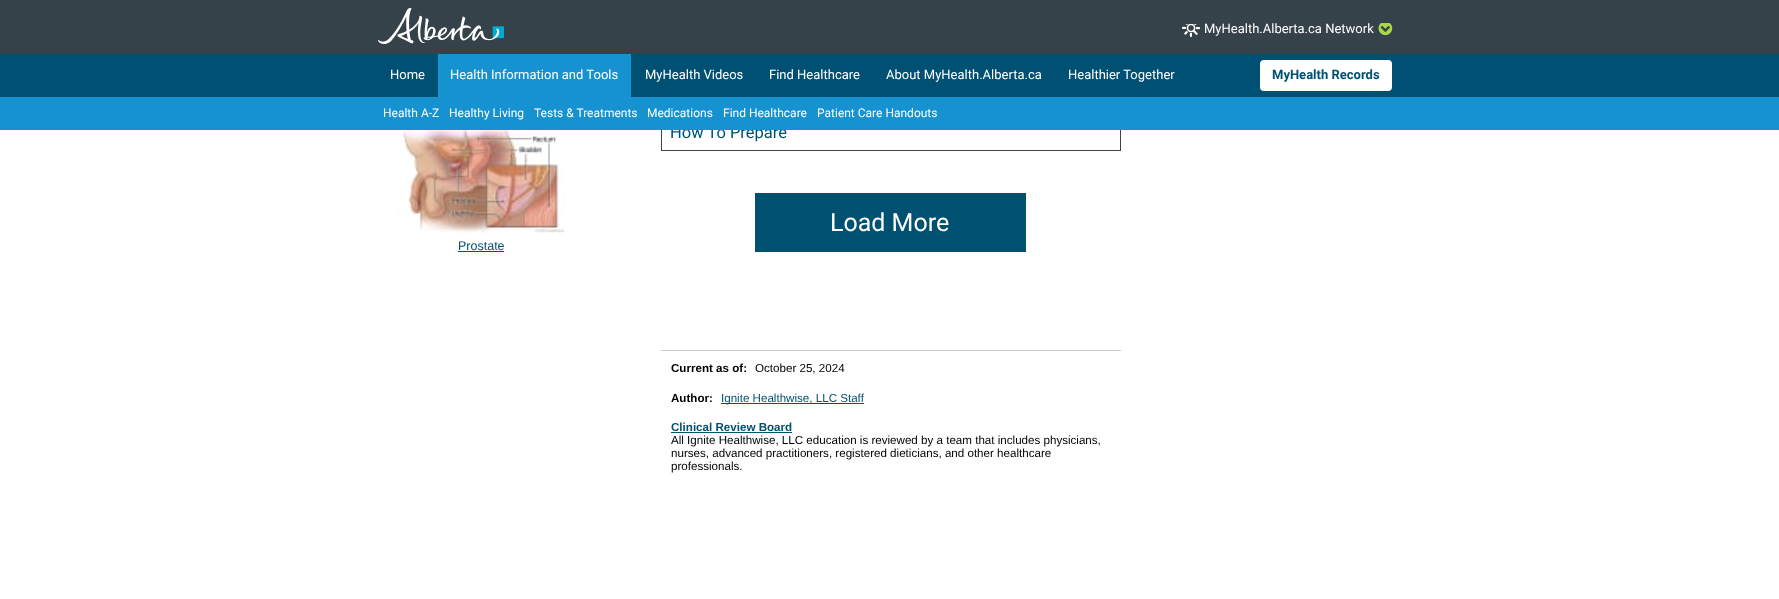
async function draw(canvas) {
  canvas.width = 1779;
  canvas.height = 599;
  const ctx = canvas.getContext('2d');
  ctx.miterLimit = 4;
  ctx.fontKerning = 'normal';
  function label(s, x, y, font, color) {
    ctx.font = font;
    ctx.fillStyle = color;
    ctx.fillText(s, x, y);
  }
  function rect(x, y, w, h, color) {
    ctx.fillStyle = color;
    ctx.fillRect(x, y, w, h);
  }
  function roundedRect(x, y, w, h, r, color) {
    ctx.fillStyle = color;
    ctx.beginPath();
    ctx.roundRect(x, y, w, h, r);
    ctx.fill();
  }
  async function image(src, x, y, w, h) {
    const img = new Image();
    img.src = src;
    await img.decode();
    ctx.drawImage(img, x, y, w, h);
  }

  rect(0, 0, 1779, 599, '#fff');
  rect(0, 54, 1779, 43, '#005073');
  rect(0, 0, 1779, 54, '#36424a');
  await image('assets/img1.png', 378, 8, 126, 36);
  await image('assets/img2.png', 1182, 24, 18, 13);
  label('MyHealth.Alberta.ca Network', 1204, 33, '13px Roboto', '#fff');
  await image('assets/img3.png', 1378, 23, 15, 13);
  label('Home', 390, 79, '13px Roboto', '#fff');
  rect(438, 54, 193, 43, '#1692d0');
  label('Health Information and Tools', 450, 79, '13px Roboto', '#fff');
  label('MyHealth Videos', 645, 79, '13px Roboto', '#fff');
  label('Find Healthcare', 769, 79, '13px Roboto', '#fff');
  label('About MyHealth.Alberta.ca', 886, 79, '13px Roboto', '#fff');
  label('Healthier Together', 1068, 79, '13px Roboto', '#fff');
  roundedRect(1260, 60, 132, 31, 4, '#fff');
  label('MyHealth Records', 1272, 79, 'bold 13px Roboto', '#005072');
  ctx.strokeStyle = '#424242';
  ctx.strokeRect(661.5, 114.5, 459, 36);
  label('How To Prepare', 670, 138, '16.5px Roboto', '#005072');
  rect(0, 97, 1779, 33, '#1692d0');
  label('Health A-Z', 383, 117, '12px Roboto', '#fff');
  label('Healthy Living', 449, 117, '12px Roboto', '#fff');
  label('Tests & Treatments', 534, 117, '12px Roboto', '#fff');
  label('Medications', 647, 117, '12px Roboto', '#fff');
  label('Find Healthcare', 723, 117, '12px Roboto', '#fff');
  label('Patient Care Handouts', 817, 117, '12px Roboto', '#fff');
  await image('assets/img4.png', 398, 130, 167, 103);
  label('Prostate', 458, 250, '12.5px Liberation Sans', '#005072');
  rect(458, 251, 46, 1, '#005072');
  rect(755, 193, 271, 59, '#005072');
  label('Load More', 830, 231, '25px Roboto', '#fff');
  rect(661, 350, 460, 1, '#cbcbcb');
  label('Current as of:', 671, 372, 'bold 11.6px Liberation Sans', '#000');
  label('October 25, 2024', 755, 372, '11.6px Liberation Sans', '#000');
  label('Author:', 671, 402, 'bold 11.6px Liberation Sans', '#000');
  rect(721, 403, 143, 1, '#005072');
  label('Ignite Healthwise, LLC Staff', 721, 402, '11.6px Liberation Sans', '#005072');
  label('Clinical Review Board', 671, 431, 'bold 11.6px Liberation Sans', '#005072');
  rect(671, 432, 121, 1, '#005072');
  label('All Ignite Healthwise, LLC education is reviewed by a team that includes physicians,', 671, 444, '11.6px Liberation Sans', '#000');
  label('nurses, advanced practitioners, registered dieticians, and other healthcare', 671, 457, '11.6px Liberation Sans', '#000');
  label('professionals.', 671, 470, '11.6px Liberation Sans', '#000');
}

draw(document.querySelector('canvas'));
